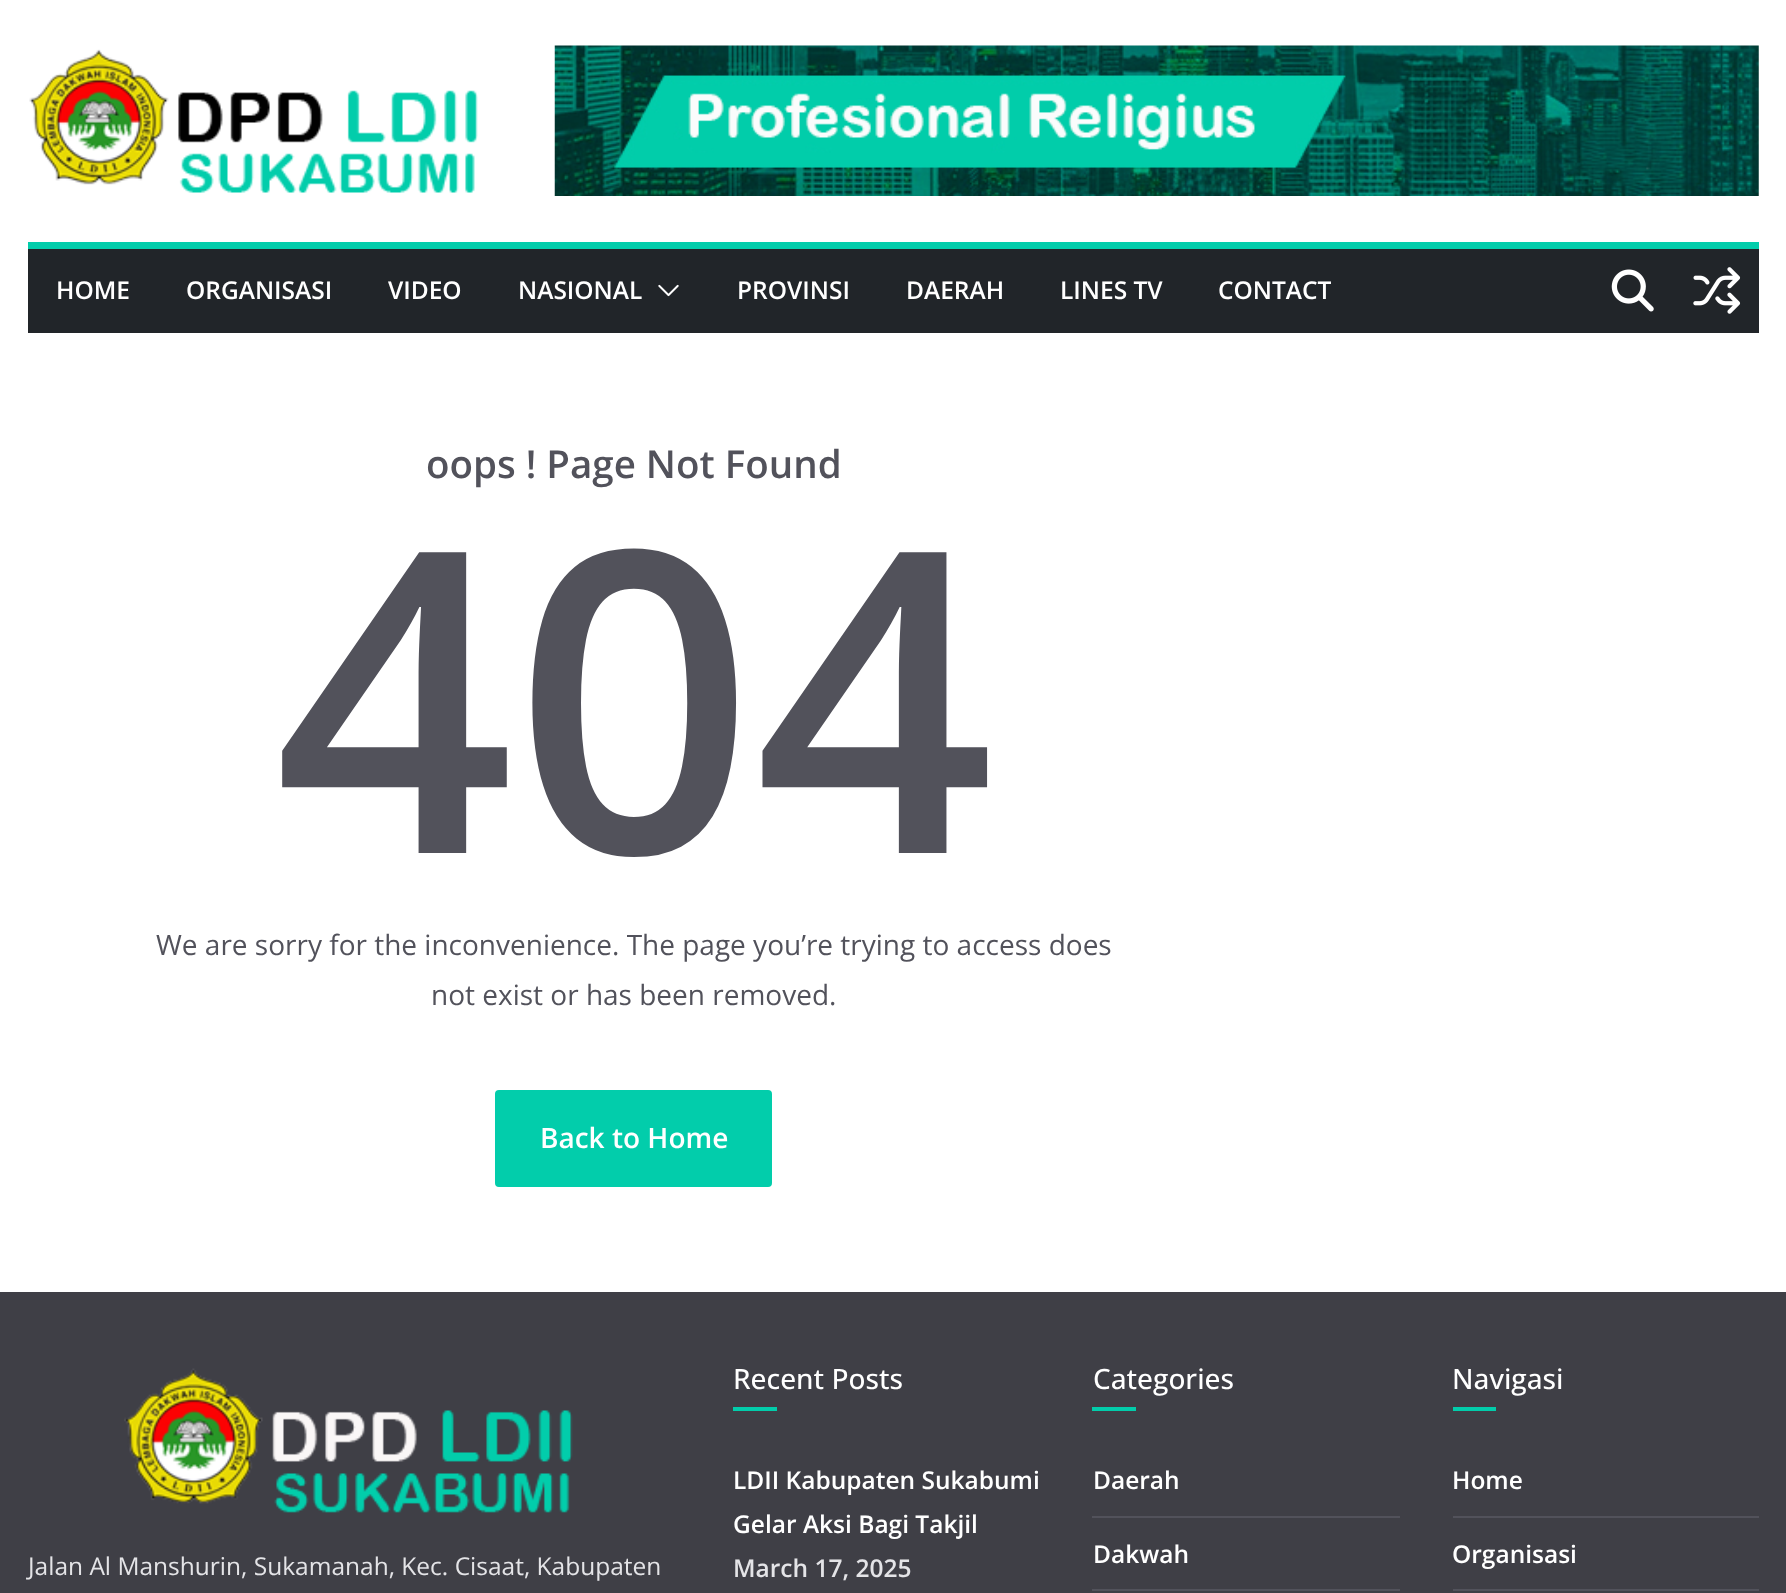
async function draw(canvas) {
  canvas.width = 1786;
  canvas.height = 1593;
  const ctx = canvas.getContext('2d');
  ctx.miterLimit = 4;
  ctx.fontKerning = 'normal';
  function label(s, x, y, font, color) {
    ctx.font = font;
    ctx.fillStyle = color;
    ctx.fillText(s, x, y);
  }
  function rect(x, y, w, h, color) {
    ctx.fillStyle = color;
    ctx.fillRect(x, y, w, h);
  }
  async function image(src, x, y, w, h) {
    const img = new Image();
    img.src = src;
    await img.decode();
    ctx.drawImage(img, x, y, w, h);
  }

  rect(0, 0, 1786, 1593, '#fff');
  await image('assets/img1.png', 29, 49, 449, 144);
  await image('assets/img2.png', 554, 45, 1205, 151);
  rect(28, 249, 1731, 84, '#212529');
  rect(28, 242, 1731, 7, '#02cdab');
  label('HOME', 56, 299, '600 24.5px Open Sans', '#fff');
  label('ORGANISASI', 186, 299, '600 24.5px Open Sans', '#fff');
  label('VIDEO', 388, 299, '600 24.5px Open Sans', '#fff');
  label('NASIONAL', 518, 299, '600 24.5px Open Sans', '#fff');
  await image('assets/img3.png', 658, 284, 21, 13);
  label('PROVINSI', 737, 299, '600 24.5px Open Sans', '#fff');
  label('DAERAH', 906, 299, '600 24.5px Open Sans', '#fff');
  label('LINES TV', 1060, 299, '600 24.5px Open Sans', '#fff');
  label('CONTACT', 1218, 299, '600 24.5px Open Sans', '#fff');
  await image('assets/img4.png', 1611, 269, 43, 43);
  await image('assets/img5.png', 1693, 267, 48, 47);
  label('oops ! Page Not Found', 426, 478, '600 38.5px Open Sans', '#52525b');
  label('404', 274, 853, '600 420px Open Sans', '#52525b');
  label('We are sorry for the inconvenience. The page you’re trying to access does', 156, 955, '28px Open Sans', '#52525b');
  label('not exist or has been removed.', 431, 1005, '28px Open Sans', '#52525b');
  ctx.fillStyle = '#02cdab';
  ctx.beginPath();
  ctx.roundRect(496, 1091, 275, 95, 3);
  ctx.fill();
  ctx.strokeStyle = '#02cdab';
  ctx.lineWidth = 2;
  ctx.stroke();
  label('Back to Home', 540, 1148, '600 28px Open Sans', '#fff');
  rect(0, 1292, 1786, 301, '#3f3f46');
  await image('assets/img6.png', 124, 1368, 449, 145);
  label('Jalan Al Manshurin, Sukamanah, Kec. Cisaat, Kabupaten', 28, 1575, '24.5px Open Sans', '#e4e4e7');
  label('Recent Posts', 733, 1389, '500 28px Open Sans', '#fff');
  rect(733, 1407, 44, 4, '#02cdab');
  label('LDII Kabupaten Sukabumi', 733, 1489, '600 24.5px Open Sans', '#fff');
  label('Gelar Aksi Bagi Takjil', 733, 1533, '600 24.5px Open Sans', '#fff');
  label('March 17, 2025', 733, 1577, '600 24.5px Open Sans', '#e4e4e7');
  label('Categories', 1093, 1389, '500 28px Open Sans', '#fff');
  rect(1092, 1407, 44, 4, '#02cdab');
  rect(1092, 1516, 308, 2, '#52525b');
  label('Daerah', 1093, 1489, '600 24.5px Open Sans', '#fff');
  rect(1092, 1589, 308, 2, '#52525b');
  label('Dakwah', 1093, 1563, '600 24.5px Open Sans', '#fff');
  label('Navigasi', 1452, 1389, '500 28px Open Sans', '#fff');
  rect(1453, 1407, 43, 4, '#02cdab');
  rect(1453, 1516, 306, 2, '#52525b');
  label('Home', 1452, 1489, '600 24.5px Open Sans', '#fff');
  rect(1453, 1589, 306, 2, '#52525b');
  label('Organisasi', 1452, 1563, '600 24.5px Open Sans', '#fff');
}

draw(document.querySelector('canvas'));
